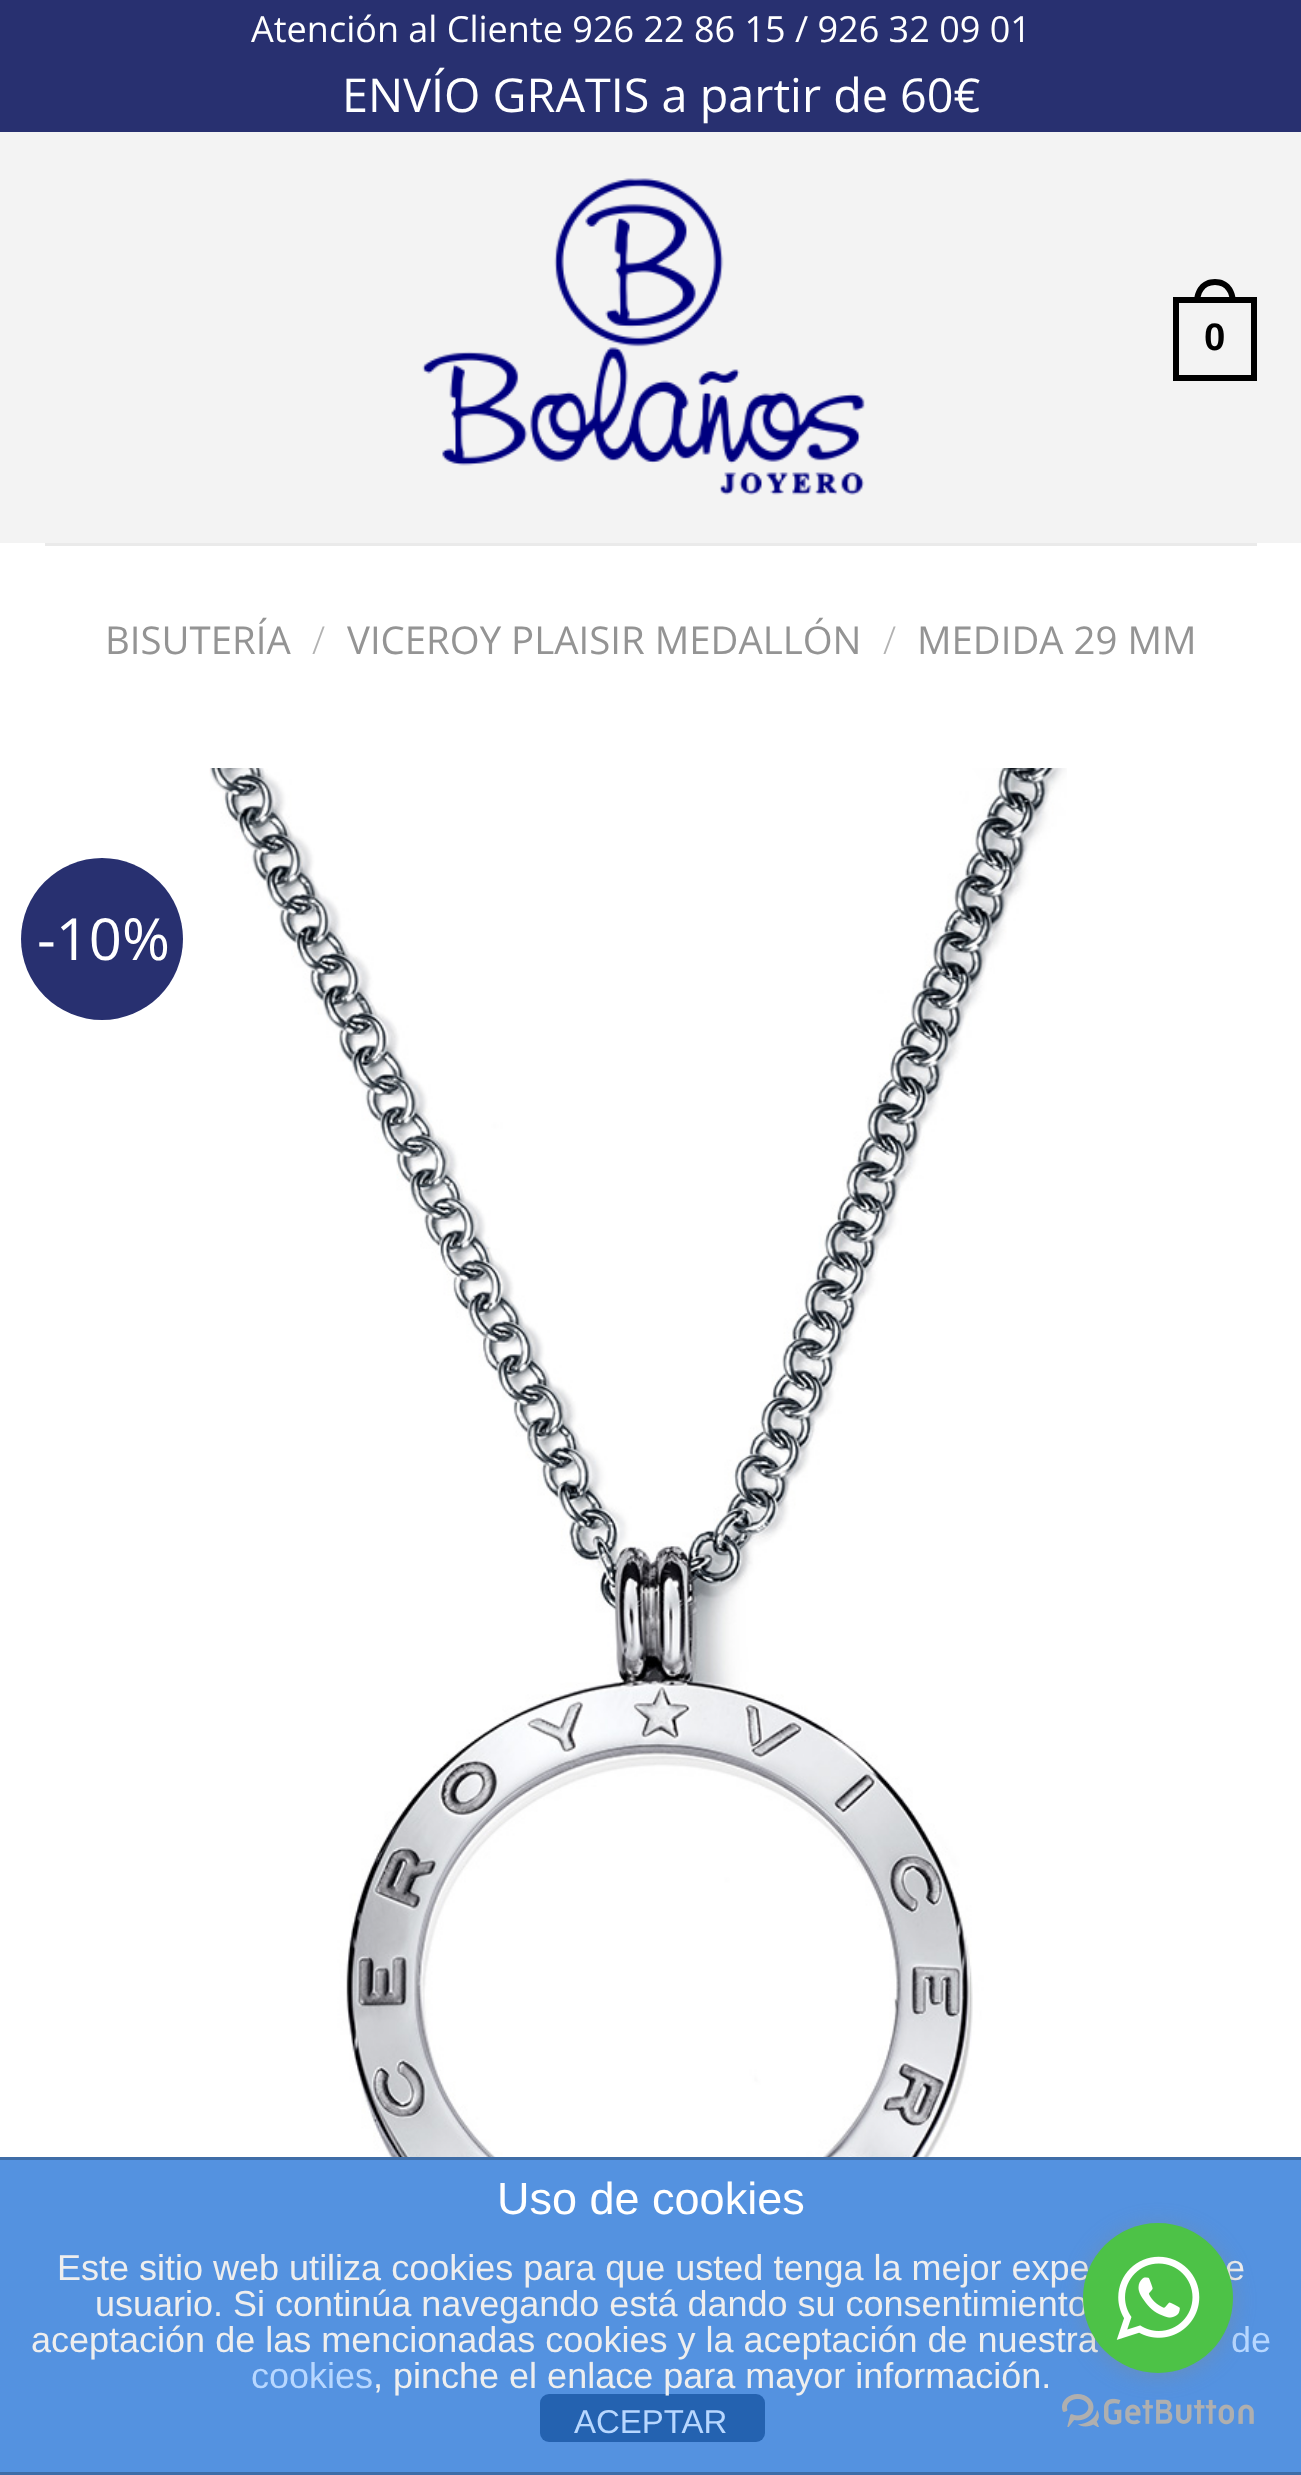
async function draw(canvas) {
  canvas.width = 1301;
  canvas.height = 2475;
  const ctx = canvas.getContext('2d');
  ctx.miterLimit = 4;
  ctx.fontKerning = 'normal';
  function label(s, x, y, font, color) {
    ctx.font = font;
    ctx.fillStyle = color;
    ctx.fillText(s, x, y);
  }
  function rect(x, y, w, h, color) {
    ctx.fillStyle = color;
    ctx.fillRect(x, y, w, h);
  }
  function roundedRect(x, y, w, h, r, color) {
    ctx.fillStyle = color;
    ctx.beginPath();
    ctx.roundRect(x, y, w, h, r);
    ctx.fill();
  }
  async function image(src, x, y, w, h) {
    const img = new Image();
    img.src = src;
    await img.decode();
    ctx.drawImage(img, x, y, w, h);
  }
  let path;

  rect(0, 0, 1301, 2475, '#fff');
  rect(0, 0, 1301, 132, '#283070');
  label('Atención al Cliente 926 22 86 15 / 926 32 09 01', 251, 42, '36px Open Sans', '#fff');
  label('ENVÍO GRATIS a partir de 60€', 342, 112, '46.75px Open Sans', '#fff');
  rect(0, 132, 1301, 411, '#f3f3f3');
  await image('assets/img1.png', 422, 178, 443, 317);
  ctx.strokeStyle = '#000';
  ctx.lineWidth = 6;
  ctx.strokeRect(1176, 300, 78, 78);
  ctx.fillStyle = '#000';
  path = new Path2D('M1215 279C1229 279 1236 290 1236 303H1194C1194 290 1201 279 1215 279ZM1215 285C1226 285 1230 294 1230 303H1200C1200 294 1204 285 1215 285Z');
  ctx.fill(path, 'evenodd');
  label('0', 1204, 350, 'bold 38.4px Liberation Sans', '#000');
  rect(45, 543, 1212, 3, '#eaeaea');
  label('BISUTERÍA', 105, 654, '38.4px Open Sans', '#949494');
  label('/', 312, 654, '300 38.4px Open Sans', '#b2b2b2');
  label('VICEROY PLAISIR MEDALLÓN', 347, 654, '38.4px Open Sans', '#949494');
  label('/', 883, 654, '300 38.4px Open Sans', '#b2b2b2');
  label('MEDIDA 29 MM', 917, 654, '38.4px Open Sans', '#949494');
  ctx.fillStyle = '#283070';
  ctx.beginPath();
  ctx.arc(102, 939, 81, 0, 2 * Math.PI);
  ctx.fill();
  label('-10%', 37, 960, '58px Open Sans', '#fff');
  await image('assets/img2.png', 209, 768, 858, 1389);
  rect(0, 2160, 1301, 312, '#5492e0');
  rect(0, 2157, 1301, 3, '#3f6da7');
  rect(0, 2472, 1301, 3, '#3f6da7');
  label('Uso de cookies', 497, 2214, '45px Liberation Sans', '#fff');
  label('Este sitio web utiliza cookies para que usted tenga la mejor expe', 57, 2280, '36px Liberation Sans', '#eee');
  label('e', 1225, 2280, '36px Liberation Sans', '#eee');
  label('usuario. Si continúa navegando está dando su consentimiento', 95, 2316, '36px Liberation Sans', '#eee');
  label('aceptación de las mencionadas cookies y la aceptación de nuestra', 31, 2352, '36px Liberation Sans', '#eee');
  label('de', 1231, 2352, '36px Liberation Sans', '#b7d7ff');
  label('cookies', 251, 2388, '36px Liberation Sans', '#b7d7ff');
  roundedRect(540, 2394, 225, 48, 9, '#2462b0');
  label(', pinche el enlace para mayor información.', 373, 2388, '36px Liberation Sans', '#eee');
  label('ACEPTAR', 574, 2433, '33px Liberation Sans', '#b7d7ff');
  await image('assets/img4.png', 1062, 2394, 192, 33);
  ctx.fillStyle = '#88888866';
  ctx.filter = 'blur(10.5px)';
  ctx.beginPath();
  ctx.roundRect(1083, 2226, 150, 150, 75);
  ctx.fill();
  ctx.filter = 'none';
  ctx.fillStyle = '#4dc247';
  ctx.beginPath();
  ctx.arc(1158, 2298, 75, 0, 2 * Math.PI);
  ctx.fill();
  await image('assets/img3.png', 1116, 2256, 84, 84);
}

draw(document.querySelector('canvas'));
